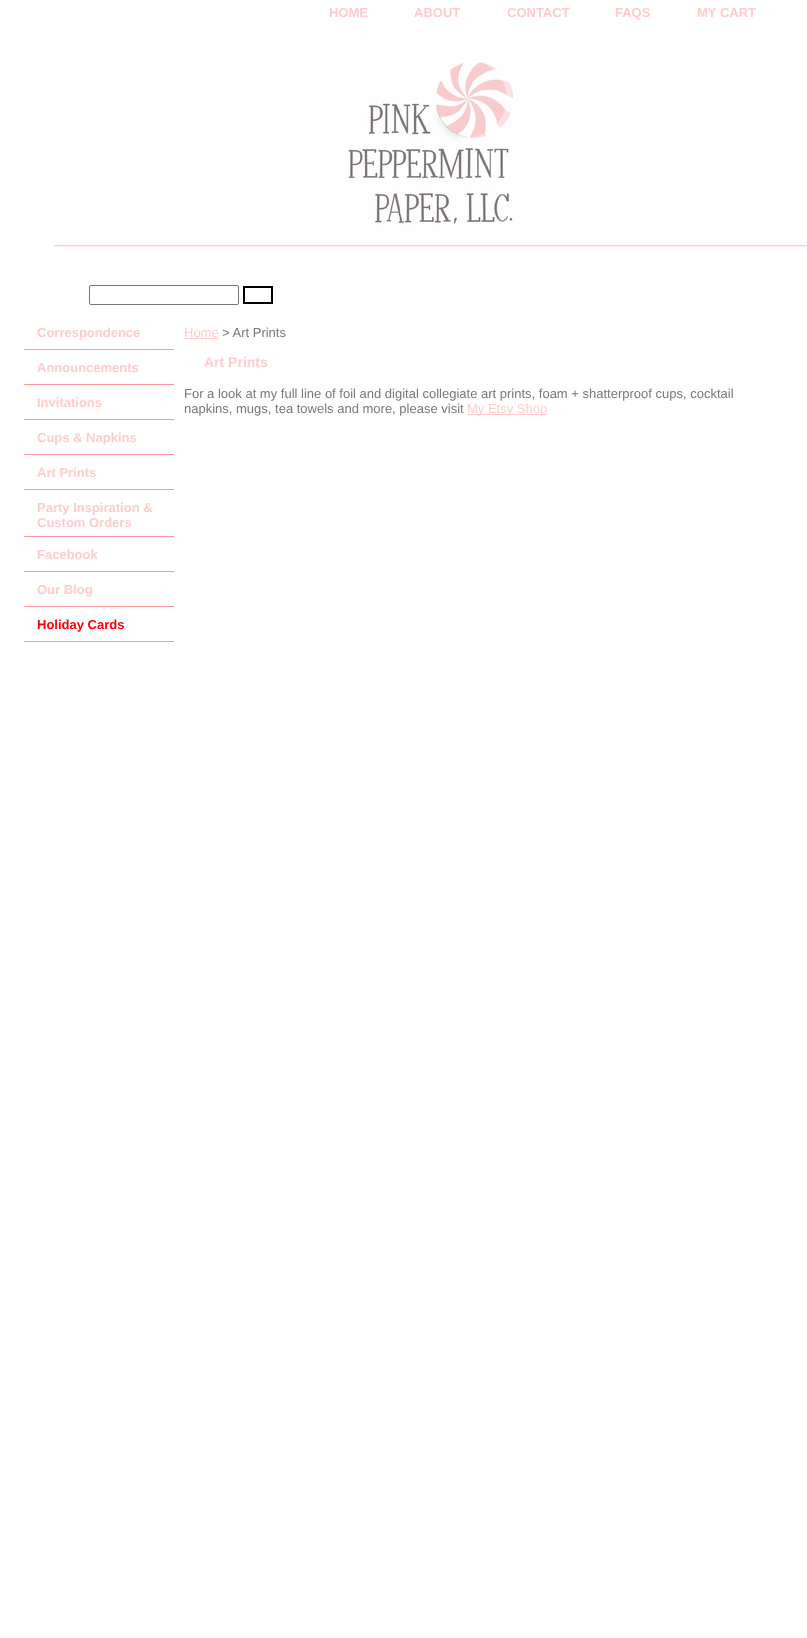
async function draw(canvas) {
  canvas.width = 807;
  canvas.height = 1638;
  const ctx = canvas.getContext('2d');
  ctx.miterLimit = 4;
  ctx.fontKerning = 'normal';
  function label(s, x, y, font, color) {
    ctx.font = font;
    ctx.fillStyle = color;
    ctx.fillText(s, x, y);
  }
  function rect(x, y, w, h, color) {
    ctx.fillStyle = color;
    ctx.fillRect(x, y, w, h);
  }
  async function image(src, x, y, w, h) {
    const img = new Image();
    img.src = src;
    await img.decode();
    ctx.drawImage(img, x, y, w, h);
  }

  rect(0, 0, 807, 1638, '#fff');
  label('HOME', 329, 17, 'bold 13px Liberation Sans', '#fcc');
  label('ABOUT', 414, 17, 'bold 13px Liberation Sans', '#fcc');
  label('CONTACT', 507, 17, 'bold 13px Liberation Sans', '#fcc');
  label('FAQS', 615, 17, 'bold 13px Liberation Sans', '#fcc');
  label('MY CART', 697, 17, 'bold 13px Liberation Sans', '#fcc');
  await image('assets/img1.png', 53, 62, 754, 185);
  ctx.beginPath();
  ctx.roundRect(89.5, 285.5, 149, 19, 1.5);
  ctx.strokeStyle = '#767676';
  ctx.stroke();
  ctx.strokeStyle = '#000';
  ctx.lineWidth = 2;
  ctx.strokeRect(244, 287, 28, 16);
  rect(24, 349, 150, 1, '#f99');
  label('Correspondence', 37, 337, 'bold 13px Liberation Sans', '#fcc');
  rect(24, 384, 150, 1, '#f99');
  label('Announcements', 37, 372, 'bold 13px Liberation Sans', '#fcc');
  rect(24, 419, 150, 1, '#f99');
  label('Invitations', 37, 407, 'bold 13px Liberation Sans', '#fcc');
  rect(24, 454, 150, 1, '#f99');
  label('Cups & Napkins', 37, 442, 'bold 13px Liberation Sans', '#fcc');
  rect(24, 489, 150, 1, '#f99');
  label('Art Prints', 37, 477, 'bold 13px Liberation Sans', '#fcc');
  rect(24, 536, 150, 1, '#f99');
  label('Party Inspiration &', 37, 512, 'bold 13px Liberation Sans', '#fcc');
  label('Custom Orders', 37, 527, 'bold 13px Liberation Sans', '#fcc');
  rect(24, 571, 150, 1, '#f99');
  label('Facebook', 37, 559, 'bold 13px Liberation Sans', '#fcc');
  rect(24, 606, 150, 1, '#f99');
  label('Our Blog', 37, 594, 'bold 13px Liberation Sans', '#fcc');
  rect(24, 641, 150, 1, '#f99');
  label('Holiday Cards', 37, 629, 'bold 13px Liberation Sans', '#f00');
  label('Home', 184, 337, '13px Liberation Sans', '#fcc');
  rect(184, 338, 34, 1, '#fcc');
  label('> Art Prints', 222, 337, '13px Liberation Sans', '#787878');
  label('Art Prints', 204, 367, 'bold 14px Liberation Sans', '#fcc');
  label('For a look at my full line of foil and digital collegiate art prints, foam + shatterproof cups, cocktail', 184, 398, '13px Liberation Sans', '#787878');
  label('napkins, mugs, tea towels and more, please visit', 184, 413, '13px Liberation Sans', '#787878');
  rect(467, 414, 80, 1, '#fcc');
  label('My Etsy Shop', 467, 413, '13px Liberation Sans', '#fcc');
}

draw(document.querySelector('canvas'));
